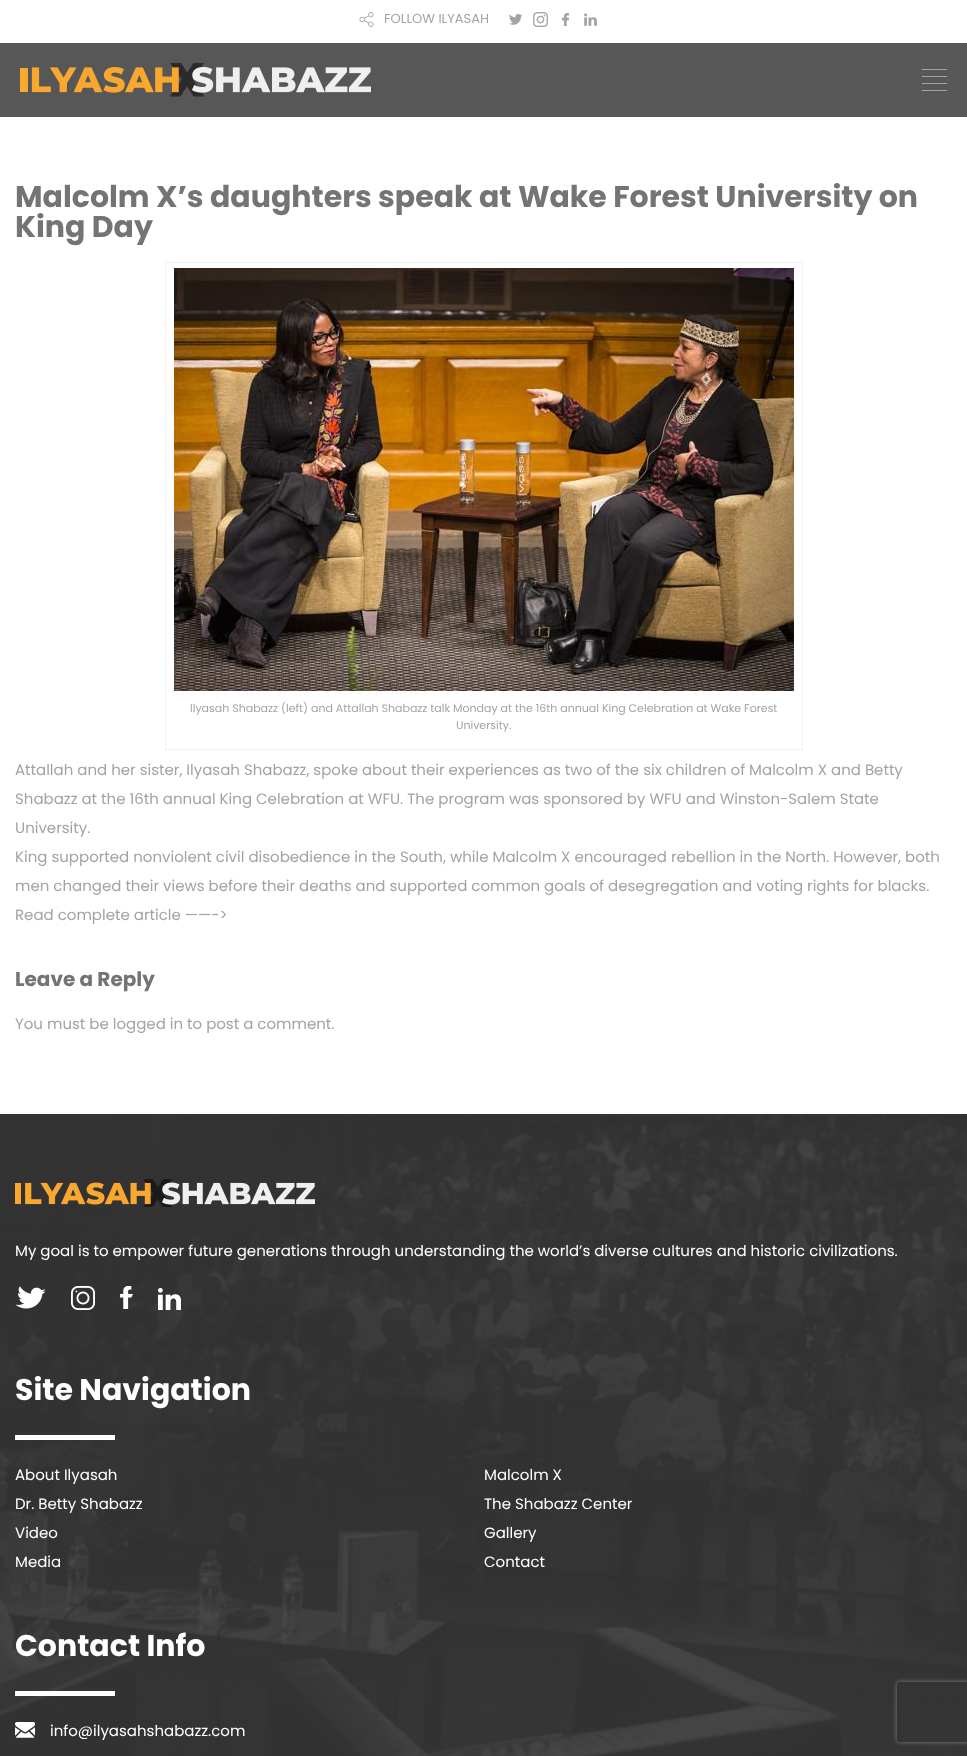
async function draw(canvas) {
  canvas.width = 967;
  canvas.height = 1756;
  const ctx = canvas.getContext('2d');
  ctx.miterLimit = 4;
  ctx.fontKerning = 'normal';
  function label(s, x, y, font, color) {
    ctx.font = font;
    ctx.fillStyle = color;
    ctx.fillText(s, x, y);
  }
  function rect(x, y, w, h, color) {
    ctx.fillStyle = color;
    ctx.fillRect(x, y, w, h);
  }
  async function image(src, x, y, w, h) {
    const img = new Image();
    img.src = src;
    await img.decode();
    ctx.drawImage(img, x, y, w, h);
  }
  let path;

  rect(0, 0, 967, 1756, '#fff');
  await image('assets/img1.png', 359, 12, 15, 15);
  label('FOLLOW ILYASAH', 384, 23, '13px Poppins', '#a3a3a3');
  await image('assets/img2.png', 509, 14, 13, 11);
  await image('assets/img3.png', 533, 12, 15, 15);
  await image('assets/img4.png', 562, 13, 7, 13);
  await image('assets/img5.png', 584, 13, 13, 13);
  rect(0, 43, 967, 74, '#575757');
  await image('assets/img6.png', 20, 63, 351, 34);
  rect(922, 69, 25, 1, '#a3a3a3');
  rect(922, 76, 25, 1, '#a3a3a3');
  rect(922, 83, 25, 1, '#a3a3a3');
  rect(922, 90, 25, 1, '#a3a3a3');
  label('Malcolm X’s daughters speak at Wake Forest University on', 15, 207, 'bold 30px Poppins', '#727475');
  label('King Day', 15, 237, 'bold 30px Poppins', '#727475');
  ctx.strokeStyle = '#f0f0f0';
  ctx.strokeRect(165.5, 262.5, 637, 487);
  await image('assets/img7.png', 174, 268, 620, 423);
  label('Ilyasah Shabazz (left) and Attallah Shabazz talk Monday at the 16th annual King Celebration at Wake Forest', 190, 712, '11px Poppins', '#a3a3a3');
  label('University.', 456, 729, '11px Poppins', '#a3a3a3');
  label('Attallah and her sister, Ilyasah Shabazz, spoke about their experiences as two of the six children of Malcolm X and Betty', 15, 775, '15px Poppins', '#a3a3a3');
  label('Shabazz at the 16th annual King Celebration at WFU. The program was sponsored by WFU and Winston-Salem State', 15, 804, '15px Poppins', '#a3a3a3');
  label('University.', 15, 833, '15px Poppins', '#a3a3a3');
  label('King supported nonviolent civil disobedience in the South, while Malcolm X encouraged rebellion in the North. However, both', 15, 862, '15px Poppins', '#a3a3a3');
  label('men changed their views before their deaths and supported common goals of desegregation and voting rights for blacks.', 15, 891, '15px Poppins', '#a3a3a3');
  label('Read complete article ——->', 15, 920, '15px Poppins', '#a3a3a3');
  label('Leave a Reply', 15, 986, 'bold 20px Poppins', '#727475');
  label('You must be logged in to post a comment.', 15, 1029, '15px Poppins', '#a3a3a3');
  await image('assets/img8.png', 0, 1114, 967, 642);
  await image('assets/img9.png', 15, 1179, 300, 28);
  label('My goal is to empower future generations through understanding the world’s diverse cultures and historic civilizations.', 15, 1256, '15px Poppins', '#fff');
  await image('assets/img10.png', 15, 1286, 31, 23);
  await image('assets/img11.png', 71, 1286, 24, 24);
  await image('assets/img12.png', 120, 1286, 13, 23);
  await image('assets/img13.png', 158, 1288, 23, 22);
  label('Site Navigation', 15, 1400, 'bold 30px Poppins', '#fff');
  rect(15, 1435, 100, 5, '#fff');
  label('About Ilyasah', 15, 1480, '15px Poppins', '#fff');
  label('Malcolm X', 484, 1480, '15px Poppins', '#fff');
  label('Dr. Betty Shabazz', 15, 1509, '15px Poppins', '#fff');
  label('The Shabazz Center', 484, 1509, '15px Poppins', '#fff');
  label('Video', 15, 1538, '15px Poppins', '#fff');
  label('Gallery', 484, 1538, '15px Poppins', '#fff');
  label('Media', 15, 1567, '15px Poppins', '#fff');
  label('Contact', 484, 1567, '15px Poppins', '#fff');
  label('Contact Info', 15, 1656, 'bold 30px Poppins', '#fff');
  rect(15, 1691, 100, 5, '#fff');
  await image('assets/img14.png', 15, 1722, 20, 16);
  label('info@ilyasahshabazz.com', 50, 1736, '15px Poppins', '#fff');
  ctx.save();
  path = new Path2D('M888 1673H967V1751H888ZM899 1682H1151C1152 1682 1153 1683 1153 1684V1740C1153 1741 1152 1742 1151 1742H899C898 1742 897 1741 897 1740V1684C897 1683 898 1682 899 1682Z');
  ctx.clip(path, 'evenodd');
  ctx.fillStyle = '#808080';
  ctx.filter = 'blur(2.5px)';
  ctx.beginPath();
  ctx.roundRect(897, 1682, 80, 60, 2);
  ctx.fill();
  ctx.filter = 'none';
  ctx.restore();
}

draw(document.querySelector('canvas'));
